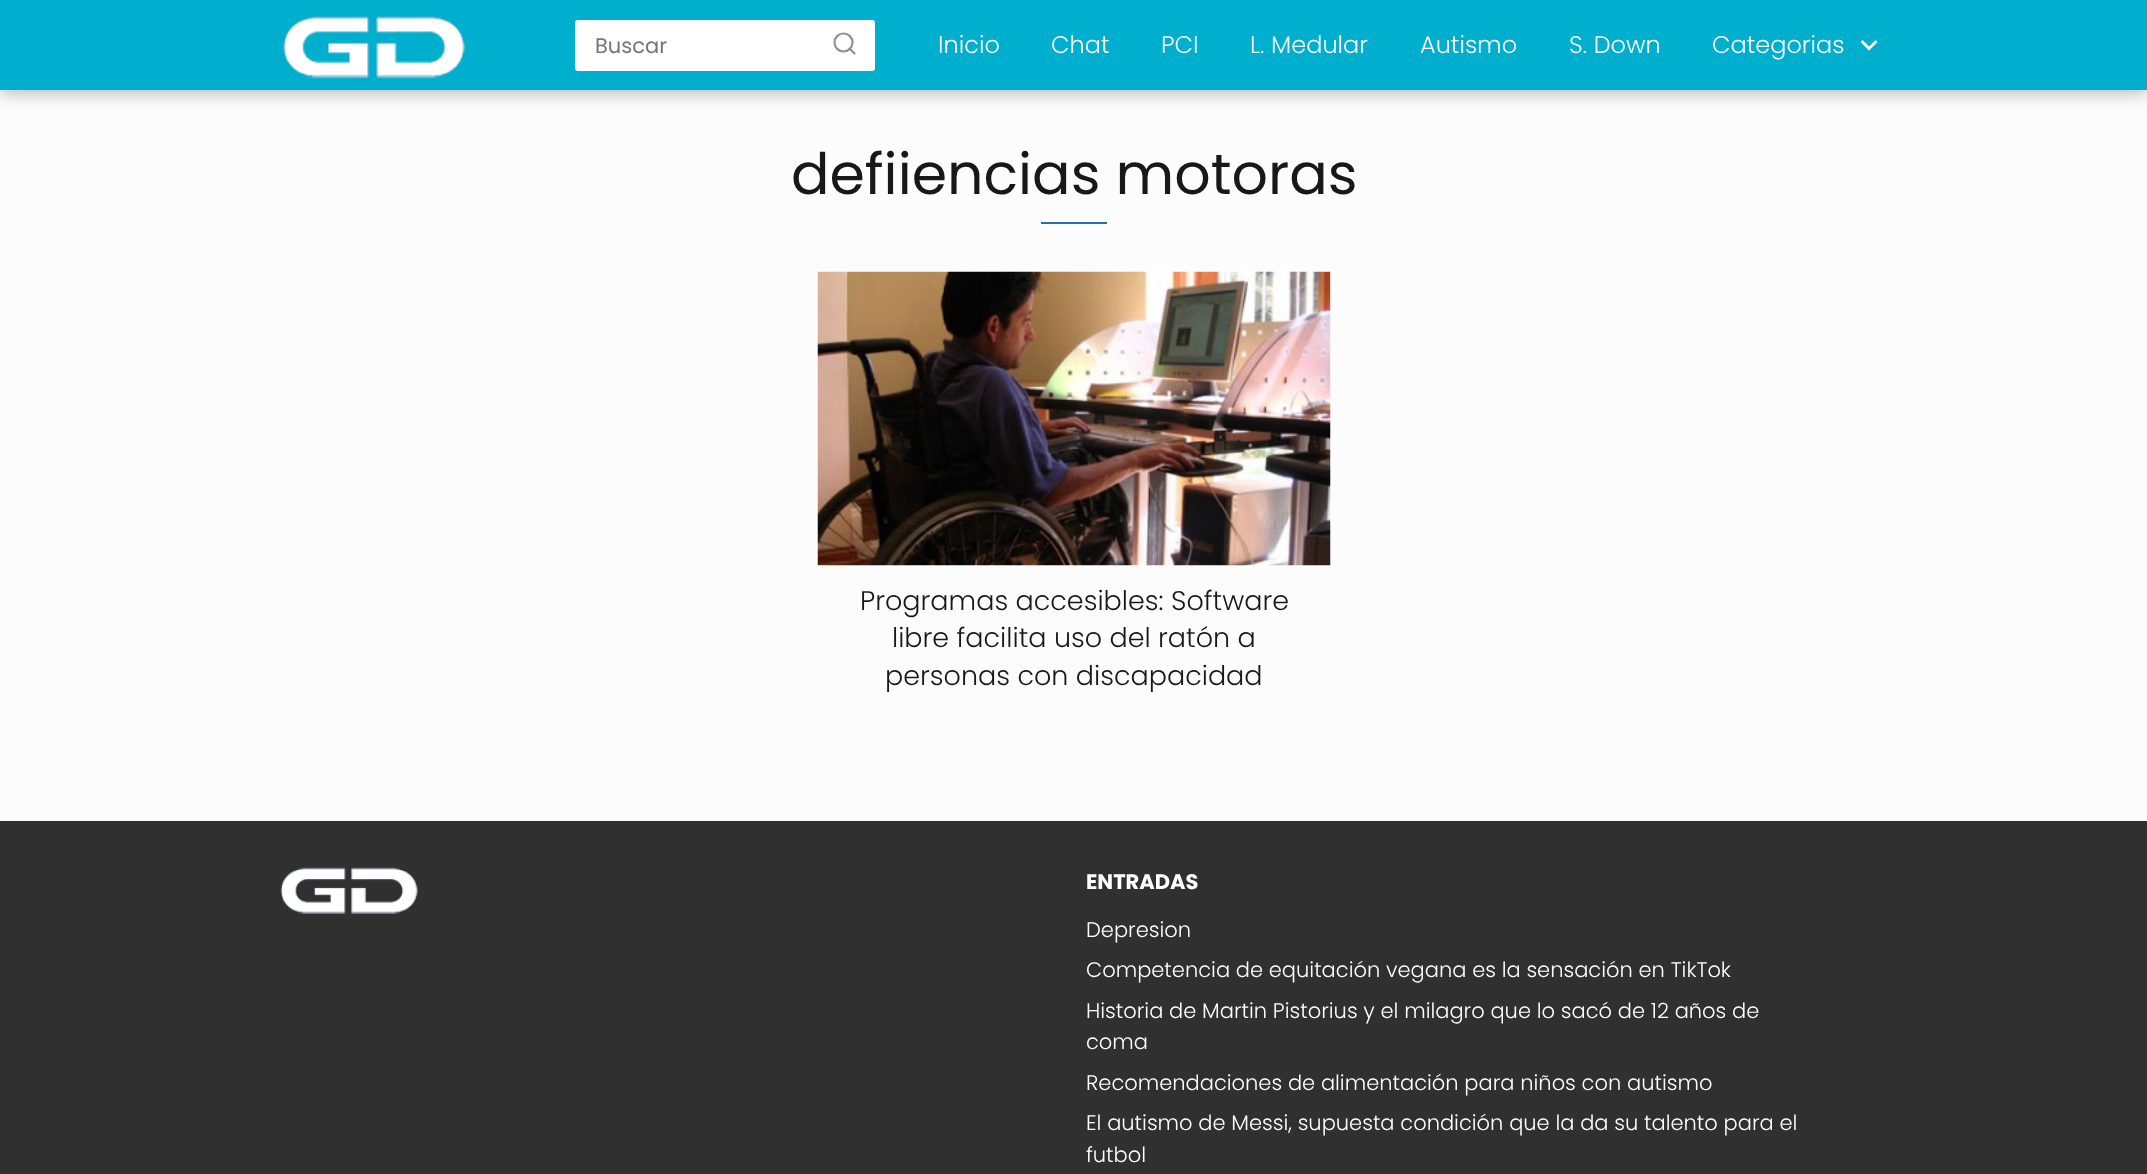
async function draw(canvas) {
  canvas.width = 2147;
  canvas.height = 1174;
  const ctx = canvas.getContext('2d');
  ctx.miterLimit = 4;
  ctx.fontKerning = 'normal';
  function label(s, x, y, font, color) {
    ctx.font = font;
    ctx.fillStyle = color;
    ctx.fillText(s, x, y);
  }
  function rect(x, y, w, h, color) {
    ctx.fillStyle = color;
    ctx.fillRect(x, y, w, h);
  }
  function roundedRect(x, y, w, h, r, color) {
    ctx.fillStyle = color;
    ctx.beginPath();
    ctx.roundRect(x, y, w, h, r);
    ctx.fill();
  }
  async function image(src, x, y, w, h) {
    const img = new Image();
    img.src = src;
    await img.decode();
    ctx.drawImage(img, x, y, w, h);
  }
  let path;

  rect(0, 0, 2147, 1174, '#fcfcfc');
  ctx.fillStyle = '#0000004d';
  ctx.filter = 'blur(9px)';
  ctx.beginPath();
  ctx.rect(0, 2, 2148, 90);
  ctx.fill();
  ctx.filter = 'none';
  rect(0, 0, 2147, 90, '#00aecd');
  await image('assets/img1.png', 283, 16, 183, 63);
  roundedRect(575, 20, 300, 51, 3, '#fff');
  ctx.beginPath();
  ctx.roundRect(576, 21, 298, 49, 2);
  ctx.strokeStyle = '#ffffff26';
  ctx.lineWidth = 2;
  ctx.stroke();
  label('Buscar', 595, 53, '21px Poppins', '#757575');
  ctx.beginPath();
  ctx.arc(843.5, 42.5, 9, 0, 2 * Math.PI);
  ctx.strokeStyle = '#919191';
  ctx.lineWidth = 2.2;
  ctx.stroke();
  path = new Path2D('M854.5 53.5L849.5 48.5');
  ctx.lineCap = 'round';
  ctx.lineJoin = 'round';
  ctx.stroke(path);
  label('Inicio', 938, 53, '300 24px Poppins', '#fff');
  label('Chat', 1051, 53, '300 24px Poppins', '#fff');
  label('PCI', 1161, 53, '300 24px Poppins', '#fff');
  label('L. Medular', 1250, 53, '300 24px Poppins', '#fff');
  label('Autismo', 1420, 53, '300 24px Poppins', '#fff');
  label('S. Down', 1569, 53, '300 24px Poppins', '#fff');
  label('Categorias', 1712, 53, '300 24px Poppins', '#fff');
  path = new Path2D('M1875.5 40L1877.5 42L1869 50.5L1867 48.5Z');
  ctx.fill(path);
  path = new Path2D('M1862.5 40L1871 48.5L1869 50.5L1860.5 42Z');
  ctx.fill(path);
  label('defiiencias motoras', 791, 194, '57px Poppins', '#181818');
  rect(1041, 222, 66, 2, '#2471a3');
  await image('assets/img2.png', 817, 271, 514, 295);
  label('Programas accesibles: Software', 860, 610, '300 27px Poppins', '#181818');
  label('libre facilita uso del ratón a', 892, 647, '300 27px Poppins', '#181818');
  label('personas con discapacidad', 885, 685, '300 27px Poppins', '#181818');
  rect(0, 821, 2147, 353, '#303030');
  await image('assets/img3.png', 280, 867, 138, 47);
  label('ENTRADAS', 1086, 889, 'bold 21px Poppins', '#fff');
  label('Depresion', 1086, 937, '300 21px Poppins', '#fff');
  label('Competencia de equitación vegana es la sensación en TikTok', 1086, 977, '300 21px Poppins', '#fff');
  label('Historia de Martin Pistorius y el milagro que lo sacó de 12 años de', 1086, 1018, '300 21px Poppins', '#fff');
  label('coma', 1086, 1049, '300 21px Poppins', '#fff');
  label('Recomendaciones de alimentación para niños con autismo', 1086, 1090, '300 21px Poppins', '#fff');
  label('El autismo de Messi, supuesta condición que la da su talento para el', 1086, 1130, '300 21px Poppins', '#fff');
  label('futbol', 1086, 1162, '300 21px Poppins', '#fff');
}

draw(document.querySelector('canvas'));
